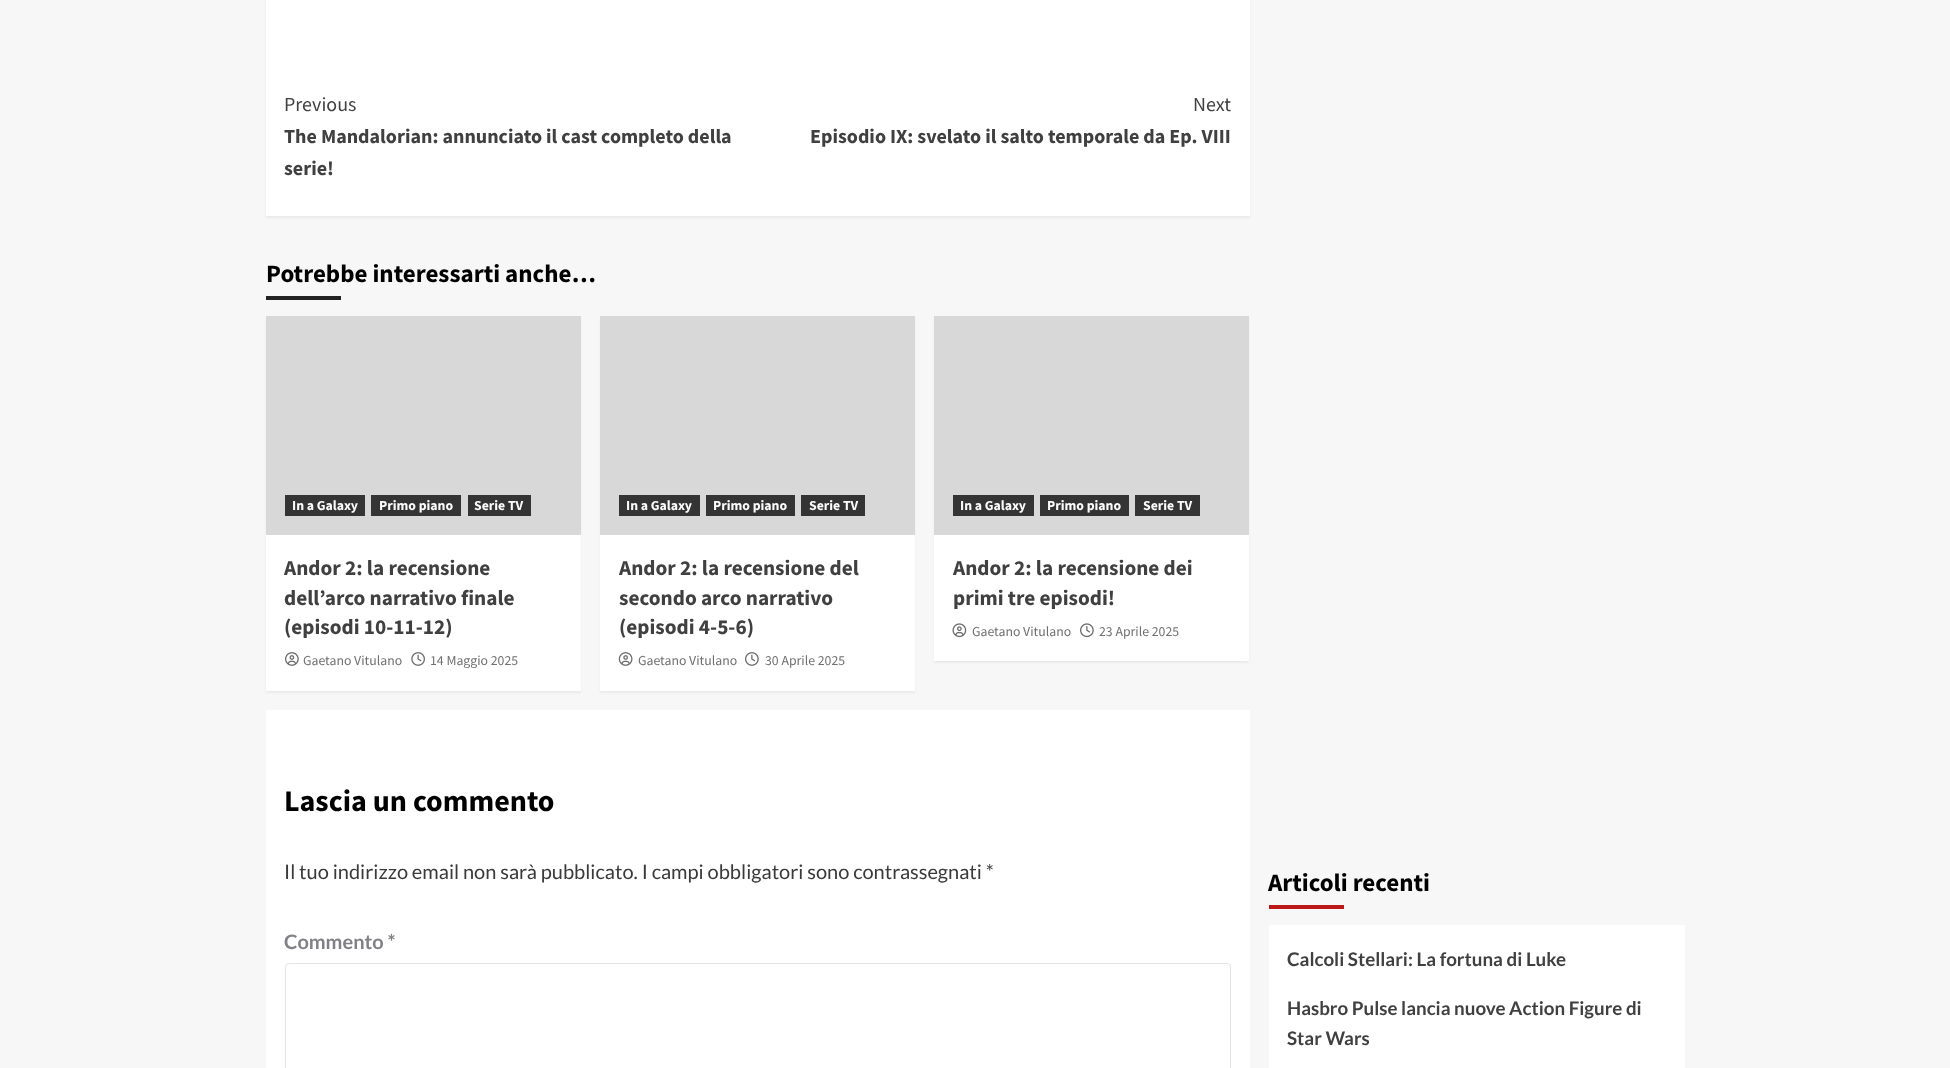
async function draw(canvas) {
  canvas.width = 1950;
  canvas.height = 1068;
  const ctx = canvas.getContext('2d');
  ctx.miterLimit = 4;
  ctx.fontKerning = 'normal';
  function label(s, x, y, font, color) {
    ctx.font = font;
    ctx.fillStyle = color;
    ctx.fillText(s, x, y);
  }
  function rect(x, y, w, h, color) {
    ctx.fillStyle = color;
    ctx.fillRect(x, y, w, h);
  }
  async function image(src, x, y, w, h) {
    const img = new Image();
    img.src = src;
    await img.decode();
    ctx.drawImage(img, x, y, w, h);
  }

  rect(0, 0, 1950, 1068, '#f7f7f7');
  ctx.fillStyle = '#0000000d';
  ctx.filter = 'blur(1px)';
  ctx.beginPath();
  ctx.rect(266, -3, 984, 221);
  ctx.fill();
  ctx.filter = 'none';
  rect(266, 0, 984, 216, '#fff');
  label('Previous', 284, 111, '20px Source Sans Pro', '#404040');
  label('The Mandalorian: annunciato il cast completo della', 284, 143, 'bold 20px Source Sans Pro', '#404040');
  label('serie!', 284, 175, 'bold 20px Source Sans Pro', '#404040');
  label('Next', 1193, 111, '20px Source Sans Pro', '#404040');
  label('Episodio IX: svelato il salto temporale da Ep. VIII', 810, 143, 'bold 20px Source Sans Pro', '#404040');
  label('Potrebbe interessarti anche…', 266, 282, 'bold 25px Source Sans Pro', '#000');
  rect(266, 296, 75, 4, '#222');
  ctx.fillStyle = '#0000000d';
  ctx.filter = 'blur(1px)';
  ctx.beginPath();
  ctx.rect(266, 318, 315, 375);
  ctx.fill();
  ctx.filter = 'none';
  rect(266, 535, 315, 156, '#fff');
  rect(266, 316, 315, 219, '#d8d8d8');
  rect(285, 495, 80, 21, '#343434');
  label('In a Galaxy', 292, 510, 'bold 13.75px Source Sans Pro', '#fbfbfb');
  rect(371, 495, 90, 21, '#343434');
  label('Primo piano', 379, 510, 'bold 13.75px Source Sans Pro', '#fbfbfb');
  rect(468, 495, 63, 21, '#343434');
  label('Serie TV', 474, 510, 'bold 13.75px Source Sans Pro', '#fbfbfb');
  label('Andor 2: la recensione', 284, 575, 'bold 21.25px Source Sans Pro', '#404040');
  label('dell’arco narrativo finale', 284, 605, 'bold 21.25px Source Sans Pro', '#404040');
  label('(episodi 10-11-12)', 284, 634, 'bold 21.25px Source Sans Pro', '#404040');
  await image('assets/img1.png', 285, 652, 14, 14);
  label('Gaetano Vitulano', 303, 665, '13.75px Source Sans Pro', '#707070');
  await image('assets/img2.png', 411, 652, 14, 14);
  label('14 Maggio 2025', 430, 665, '13.75px Source Sans Pro', '#707070');
  ctx.fillStyle = '#0000000d';
  ctx.filter = 'blur(1px)';
  ctx.beginPath();
  ctx.rect(600, 318, 315, 375);
  ctx.fill();
  ctx.filter = 'none';
  rect(600, 535, 315, 156, '#fff');
  rect(600, 316, 315, 219, '#d8d8d8');
  rect(619, 495, 81, 21, '#343434');
  label('In a Galaxy', 626, 510, 'bold 13.75px Source Sans Pro', '#fbfbfb');
  rect(706, 495, 89, 21, '#343434');
  label('Primo piano', 713, 510, 'bold 13.75px Source Sans Pro', '#fbfbfb');
  rect(801, 495, 64, 21, '#343434');
  label('Serie TV', 809, 510, 'bold 13.75px Source Sans Pro', '#fbfbfb');
  label('Andor 2: la recensione del', 619, 575, 'bold 21.25px Source Sans Pro', '#404040');
  label('secondo arco narrativo', 619, 605, 'bold 21.25px Source Sans Pro', '#404040');
  label('(episodi 4-5-6)', 619, 634, 'bold 21.25px Source Sans Pro', '#404040');
  await image('assets/img3.png', 618, 652, 15, 14);
  label('Gaetano Vitulano', 638, 665, '13.75px Source Sans Pro', '#707070');
  await image('assets/img4.png', 745, 652, 14, 14);
  label('30 Aprile 2025', 765, 665, '13.75px Source Sans Pro', '#707070');
  ctx.fillStyle = '#0000000d';
  ctx.filter = 'blur(1px)';
  ctx.beginPath();
  ctx.rect(934, 318, 315, 345);
  ctx.fill();
  ctx.filter = 'none';
  rect(934, 535, 315, 126, '#fff');
  rect(934, 316, 315, 219, '#d8d8d8');
  rect(953, 495, 81, 21, '#343434');
  label('In a Galaxy', 960, 510, 'bold 13.75px Source Sans Pro', '#fbfbfb');
  rect(1040, 495, 89, 21, '#343434');
  label('Primo piano', 1047, 510, 'bold 13.75px Source Sans Pro', '#fbfbfb');
  rect(1135, 495, 65, 21, '#343434');
  label('Serie TV', 1143, 510, 'bold 13.75px Source Sans Pro', '#fbfbfb');
  label('Andor 2: la recensione dei', 953, 575, 'bold 21.25px Source Sans Pro', '#404040');
  label('primi tre episodi!', 953, 605, 'bold 21.25px Source Sans Pro', '#404040');
  await image('assets/img5.png', 952, 623, 15, 15);
  label('Gaetano Vitulano', 972, 636, '13.75px Source Sans Pro', '#707070');
  await image('assets/img6.png', 1080, 623, 14, 15);
  label('23 Aprile 2025', 1099, 636, '13.75px Source Sans Pro', '#707070');
  rect(266, 710, 984, 358, '#fff');
  label('Lascia un commento', 284, 811, 'bold 30px Source Sans Pro', '#000');
  label('Il tuo indirizzo email non sarà pubblicato. I campi obbligatori sono contrassegnati *', 284, 879, '20px Lato', '#3a3a3a');
  label('Commento *', 284, 949, 'bold 20px Lato', '#808086');
  ctx.beginPath();
  ctx.roundRect(285.5, 963.5, 945, 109, 3.5);
  ctx.strokeStyle = '#e4e4e4';
  ctx.stroke();
  label('Articoli recenti', 1268, 891, 'bold 25px Source Sans Pro', '#000');
  rect(1269, 905, 75, 4, '#bb1919');
  rect(1269, 925, 416, 143, '#fff');
  label('Calcoli Stellari: La fortuna di Luke', 1287, 966, 'bold 18.75px Lato', '#404040');
  label('Hasbro Pulse lancia nuove Action Figure di', 1287, 1015, 'bold 18.75px Lato', '#404040');
  label('Star Wars', 1287, 1045, 'bold 18.75px Lato', '#404040');
}

draw(document.querySelector('canvas'));
